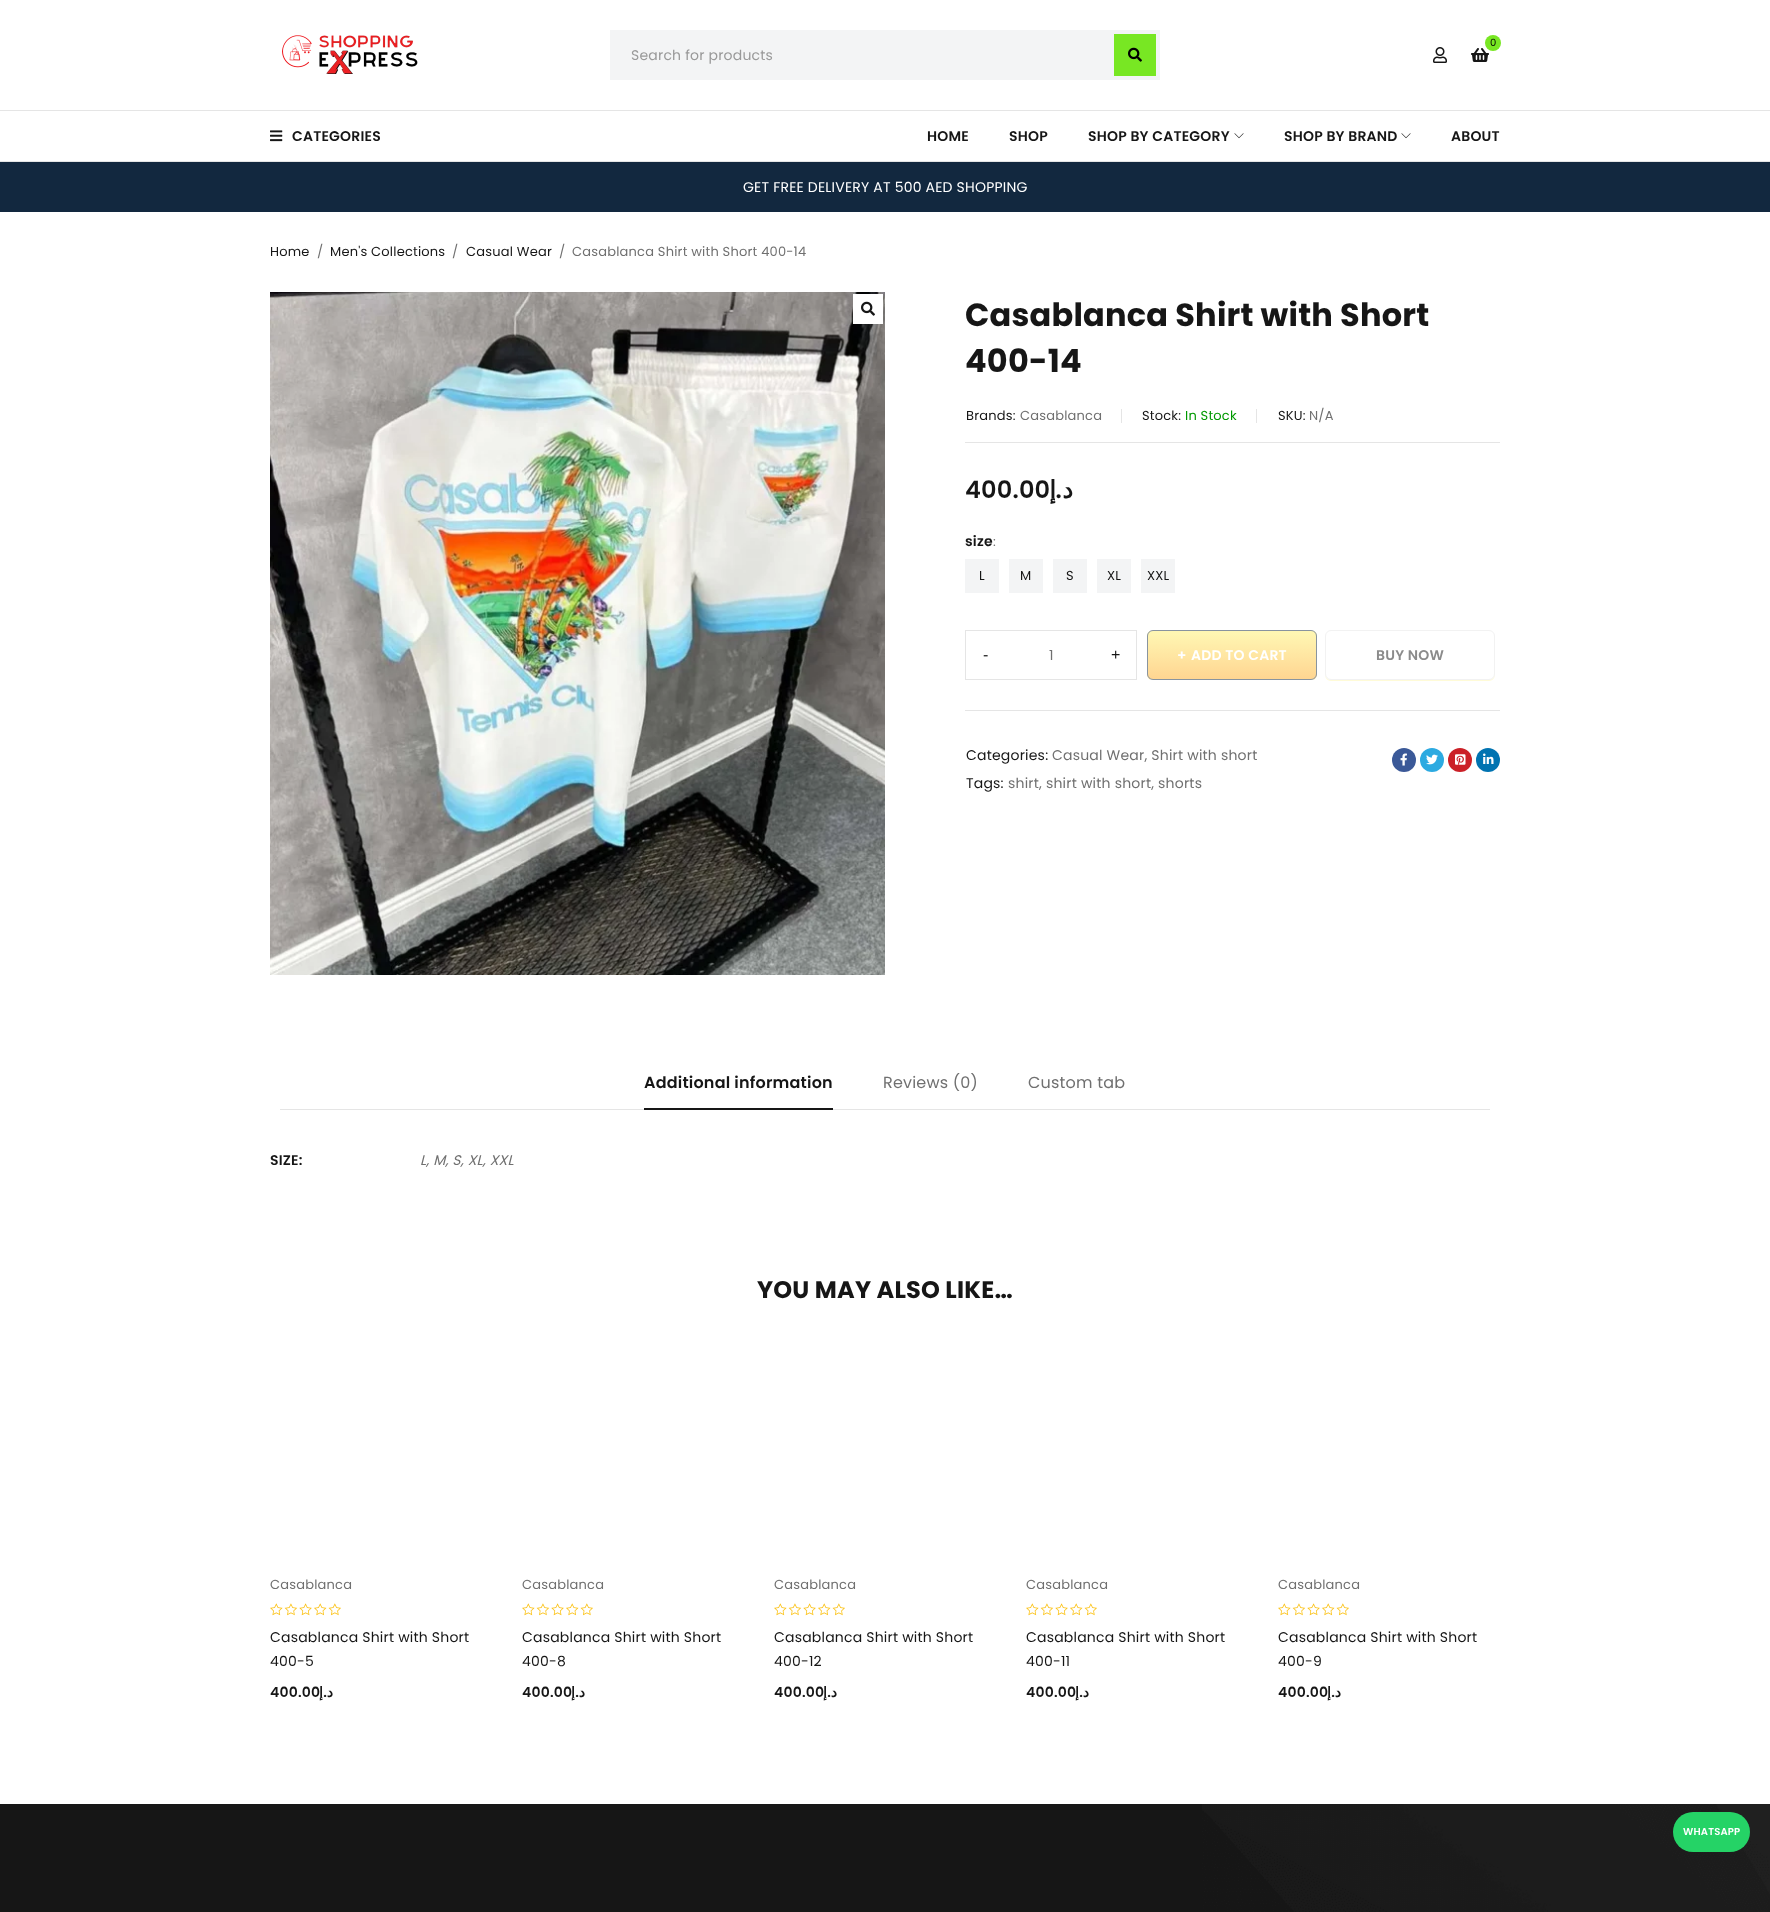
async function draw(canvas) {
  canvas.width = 1770;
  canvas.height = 1912;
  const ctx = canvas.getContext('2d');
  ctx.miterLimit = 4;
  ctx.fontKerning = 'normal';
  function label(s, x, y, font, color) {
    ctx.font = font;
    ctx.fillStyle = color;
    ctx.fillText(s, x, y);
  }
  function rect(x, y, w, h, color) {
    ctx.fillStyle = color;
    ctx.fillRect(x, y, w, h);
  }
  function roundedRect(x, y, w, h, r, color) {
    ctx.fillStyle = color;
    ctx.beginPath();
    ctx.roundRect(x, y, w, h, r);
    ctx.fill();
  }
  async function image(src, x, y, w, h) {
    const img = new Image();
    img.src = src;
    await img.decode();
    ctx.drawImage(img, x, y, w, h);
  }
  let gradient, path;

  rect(0, 0, 1770, 1912, '#fff');
  rect(0, 110, 1770, 1, '#e5e5e5');
  await image('assets/img1.png', 282, 35, 136, 39);
  await image('assets/img2.png', 1471, 48, 18, 14);
  ctx.fillStyle = '#78e723';
  ctx.beginPath();
  ctx.arc(1493, 43, 8, 0, 2 * Math.PI);
  ctx.fill();
  label('0', 1490, 46, '10px Poppins', '#000');
  await image('assets/img3.png', 1433, 47, 14, 16);
  rect(610, 30, 550, 50, '#f3f4f5');
  ctx.letterSpacing = '0.2px';
  label('Search for products', 631, 60, '14px Poppins', '#999');
  rect(1114, 34, 42, 42, '#78e723');
  await image('assets/img4.png', 1128, 47, 14, 15);
  rect(0, 161, 1770, 1, '#e5e5e5');
  await image('assets/img5.png', 270, 130, 13, 12);
  label('CATEGORIES', 292, 141, '600 14px Poppins', '#161616');
  label('HOME', 927, 141, '600 14px Poppins', '#161616');
  label('SHOP', 1009, 141, '600 14px Poppins', '#161616');
  label('SHOP BY CATEGORY', 1088, 141, '600 14px Poppins', '#161616');
  await image('assets/img6.png', 1234, 133, 10, 6);
  label('SHOP BY BRAND', 1284, 141, '600 14px Poppins', '#161616');
  await image('assets/img6.png', 1401, 133, 10, 6);
  label('ABOUT', 1451, 141, '600 14px Poppins', '#161616');
  rect(0, 162, 1770, 50, '#12283f');
  label('GET FREE DELIVERY AT 500 AED SHOPPING', 743, 192, '14px Poppins', '#fff');
  label('Home', 270, 256, '13px Poppins', '#161616');
  label('/', 317, 256, '13px Poppins', '#707070');
  label('Men\'s Collections', 330, 256, '13px Poppins', '#161616');
  label('/', 452, 256, '13px Poppins', '#707070');
  label('Casual Wear', 466, 256, '13px Poppins', '#161616');
  label('/', 559, 256, '13px Poppins', '#707070');
  label('Casablanca Shirt with Short 400-14', 572, 256, '13px Poppins', '#707070');
  await image('assets/img7.png', 270, 292, 615, 683);
  rect(853, 294, 30, 30, '#fff');
  await image('assets/img8.png', 861, 301, 14, 15);
  label('Casablanca Shirt with Short', 965, 326, 'bold 32px Poppins', '#161616');
  label('400-14', 965, 372, 'bold 32px Poppins', '#161616');
  rect(965, 442, 535, 1, '#e5e5e5');
  label('Brands:', 966, 420, '13px Poppins', '#161616');
  label('Casablanca', 1020, 420, '13px Poppins', '#707070');
  rect(1121, 409, 1, 14, '#e5e5e5');
  label('Stock:', 1142, 420, '13px Poppins', '#161616');
  label('In Stock', 1185, 420, '13px Poppins', '#090');
  rect(1256, 409, 1, 14, '#e5e5e5');
  label('SKU:', 1278, 420, '13px Poppins', '#161616');
  label('N/A', 1309, 420, '13px Poppins', '#707070');
  label('400.00', 965, 498, '600 24px Poppins', '#161616');
  ctx.direction = 'rtl';
  label('إ', 1056, 498, 'bold 24px DejaVu Sans', '#161616');
  label('.', 1062, 498, '600 24px Poppins', '#161616');
  label('د', 1073, 498, 'bold 24px DejaVu Sans', '#161616');
  ctx.direction = 'ltr';
  label('size', 965, 546, '600 14px Poppins', '#161616');
  label(':', 993, 546, '13px Poppins', '#707070');
  rect(965, 559, 34, 34, '#f3f4f5');
  label('L', 979, 580, '13px Poppins', '#161616');
  rect(1009, 559, 34, 34, '#f3f4f5');
  label('M', 1020, 580, '13px Poppins', '#161616');
  rect(1053, 559, 34, 34, '#f3f4f5');
  label('S', 1066, 580, '13px Poppins', '#161616');
  rect(1097, 559, 34, 34, '#f3f4f5');
  label('XL', 1107, 580, '13px Poppins', '#161616');
  rect(1141, 559, 34, 34, '#f3f4f5');
  label('XXL', 1147, 580, '13px Poppins', '#161616');
  ctx.strokeStyle = '#e5e5e5';
  ctx.strokeRect(965.5, 630.5, 171, 49);
  label('-', 983, 660, '16px Liberation Sans', '#161616');
  label('1', 1049, 660, '14px Poppins', '#707070');
  label('+', 1111, 660, '16px Liberation Sans', '#161616');
  ctx.save();
  ctx.beginPath();
  ctx.rect(965, 630, 535, 50);
  ctx.clip();
  ctx.fillStyle = '#fffbd7';
  path = new Path2D('M1147 674V675C1147 678 1150 681 1153 681H1311C1314 681 1317 678 1317 675V674C1317 677 1314 680 1311 680H1153C1150 680 1147 677 1147 674Z');
  ctx.fill(path);
  ctx.restore();
  ctx.save();
  ctx.beginPath();
  ctx.roundRect(1147, 630, 170, 50, 6);
  ctx.clip();
  gradient = ctx.createLinearGradient(1232, 631, 1232, 679);
  gradient.addColorStop(0.05, '#fff6b2');
  gradient.addColorStop(1, '#ffd591');
  ctx.fillStyle = gradient;
  ctx.fillRect(1147, 631, 170, 48);
  ctx.restore();
  ctx.beginPath();
  ctx.roundRect(1147.5, 630.5, 169, 49, 5.5);
  ctx.strokeStyle = '#89949f';
  ctx.stroke();
  label('+', 1177, 660, '600 14px Poppins', '#fff');
  label('ADD TO CART', 1191, 660, '600 14px Poppins', '#fff');
  ctx.fillStyle = '#fffbd7';
  path = new Path2D('M1325 674V675C1325 678 1328 681 1331 681H1489C1492 681 1495 678 1495 675V674C1495 677 1492 680 1489 680H1331C1328 680 1325 677 1325 674Z');
  ctx.fill(path);
  ctx.beginPath();
  ctx.roundRect(1325.5, 630.5, 169, 49, 5.5);
  ctx.strokeStyle = '#f2f2f2';
  ctx.stroke();
  label('BUY NOW', 1376, 660, '600 14px Poppins', '#8b8b8b');
  rect(965, 710, 535, 1, '#e5e5e5');
  label('Categories:', 966, 760, '14px Poppins', '#161616');
  label('Casual Wear, Shirt with short', 1052, 760, '14px Poppins', '#707070');
  label('Tags:', 966, 788, '14px Poppins', '#161616');
  label('shirt, shirt with short, shorts', 1008, 788, '14px Poppins', '#707070');
  ctx.fillStyle = '#3b5998';
  ctx.beginPath();
  ctx.arc(1404, 760, 12, 0, 2 * Math.PI);
  ctx.fill();
  await image('assets/img9.png', 1400, 753, 7, 13);
  ctx.fillStyle = '#2caae1';
  ctx.beginPath();
  ctx.arc(1432, 760, 12, 0, 2 * Math.PI);
  ctx.fill();
  await image('assets/img10.png', 1426, 754, 12, 11);
  ctx.fillStyle = '#cb2027';
  ctx.beginPath();
  ctx.arc(1460, 760, 12, 0, 2 * Math.PI);
  ctx.fill();
  await image('assets/img11.png', 1455, 754, 11, 11);
  ctx.fillStyle = '#0073b1';
  ctx.beginPath();
  ctx.arc(1488, 760, 12, 0, 2 * Math.PI);
  ctx.fill();
  await image('assets/img12.png', 1483, 753, 11, 11);
  label('Additional information', 644, 1088, '600 16px Poppins', '#161616');
  rect(280, 1109, 1210, 1, '#e5e5e5');
  rect(644, 1108, 189, 2, '#161616');
  label('Reviews (0)', 883, 1088, '16px Poppins', '#707070');
  label('Custom tab', 1028, 1088, '16px Poppins', '#707070');
  label('SIZE:', 270, 1165, '600 14px Poppins', '#161616');
  label('L, M, S, XL, XXL', 420, 1165, 'italic 14px Poppins', '#707070');
  label('YOU MAY ALSO LIKE…', 757, 1298, 'bold 24px Poppins', '#161616');
  label('Casablanca', 270, 1589, '13px Poppins', '#707070');
  await image('assets/img13.png', 270, 1603, 71, 13);
  label('Casablanca Shirt with Short', 270, 1642, '14px Poppins', '#161616');
  label('400-5', 270, 1666, '14px Poppins', '#161616');
  ctx.direction = 'rtl';
  label('إ', 323, 1697, 'bold 14px DejaVu Sans', '#161616');
  ctx.direction = 'ltr';
  label('400.00', 270, 1697, '600 14px Poppins', '#161616');
  ctx.direction = 'rtl';
  label('.', 327, 1697, '600 14px Poppins', '#161616');
  label('د', 333, 1697, 'bold 14px DejaVu Sans', '#161616');
  ctx.direction = 'ltr';
  label('Casablanca', 522, 1589, '13px Poppins', '#707070');
  await image('assets/img13.png', 522, 1603, 71, 13);
  label('Casablanca Shirt with Short', 522, 1642, '14px Poppins', '#161616');
  label('400-8', 522, 1666, '14px Poppins', '#161616');
  ctx.direction = 'rtl';
  label('إ', 575, 1697, 'bold 14px DejaVu Sans', '#161616');
  ctx.direction = 'ltr';
  label('400.00', 522, 1697, '600 14px Poppins', '#161616');
  ctx.direction = 'rtl';
  label('.', 579, 1697, '600 14px Poppins', '#161616');
  label('د', 585, 1697, 'bold 14px DejaVu Sans', '#161616');
  ctx.direction = 'ltr';
  label('Casablanca', 774, 1589, '13px Poppins', '#707070');
  await image('assets/img13.png', 774, 1603, 71, 13);
  label('Casablanca Shirt with Short', 774, 1642, '14px Poppins', '#161616');
  label('400-12', 774, 1666, '14px Poppins', '#161616');
  ctx.direction = 'rtl';
  label('إ', 827, 1697, 'bold 14px DejaVu Sans', '#161616');
  ctx.direction = 'ltr';
  label('400.00', 774, 1697, '600 14px Poppins', '#161616');
  ctx.direction = 'rtl';
  label('.', 831, 1697, '600 14px Poppins', '#161616');
  label('د', 837, 1697, 'bold 14px DejaVu Sans', '#161616');
  ctx.direction = 'ltr';
  label('Casablanca', 1026, 1589, '13px Poppins', '#707070');
  await image('assets/img13.png', 1026, 1603, 71, 13);
  label('Casablanca Shirt with Short', 1026, 1642, '14px Poppins', '#161616');
  label('400-11', 1026, 1666, '14px Poppins', '#161616');
  ctx.direction = 'rtl';
  label('إ', 1079, 1697, 'bold 14px DejaVu Sans', '#161616');
  ctx.direction = 'ltr';
  label('400.00', 1026, 1697, '600 14px Poppins', '#161616');
  ctx.direction = 'rtl';
  label('.', 1083, 1697, '600 14px Poppins', '#161616');
  label('د', 1089, 1697, 'bold 14px DejaVu Sans', '#161616');
  ctx.direction = 'ltr';
  label('Casablanca', 1278, 1589, '13px Poppins', '#707070');
  await image('assets/img13.png', 1278, 1603, 71, 13);
  label('Casablanca Shirt with Short', 1278, 1642, '14px Poppins', '#161616');
  label('400-9', 1278, 1666, '14px Poppins', '#161616');
  ctx.direction = 'rtl';
  label('إ', 1331, 1697, 'bold 14px DejaVu Sans', '#161616');
  ctx.direction = 'ltr';
  label('400.00', 1278, 1697, '600 14px Poppins', '#161616');
  ctx.direction = 'rtl';
  label('.', 1335, 1697, '600 14px Poppins', '#161616');
  label('د', 1341, 1697, 'bold 14px DejaVu Sans', '#161616');
  rect(0, 1804, 1770, 108, '#161616');
  await image('assets/img14.png', 1202, 1804, 568, 108);
  roundedRect(1673, 1812, 77, 40, 20, '#25d366');
  ctx.direction = 'ltr';
  label('WHATSAPP', 1683, 1835, '600 10px Poppins', '#fff');
}

draw(document.querySelector('canvas'));
